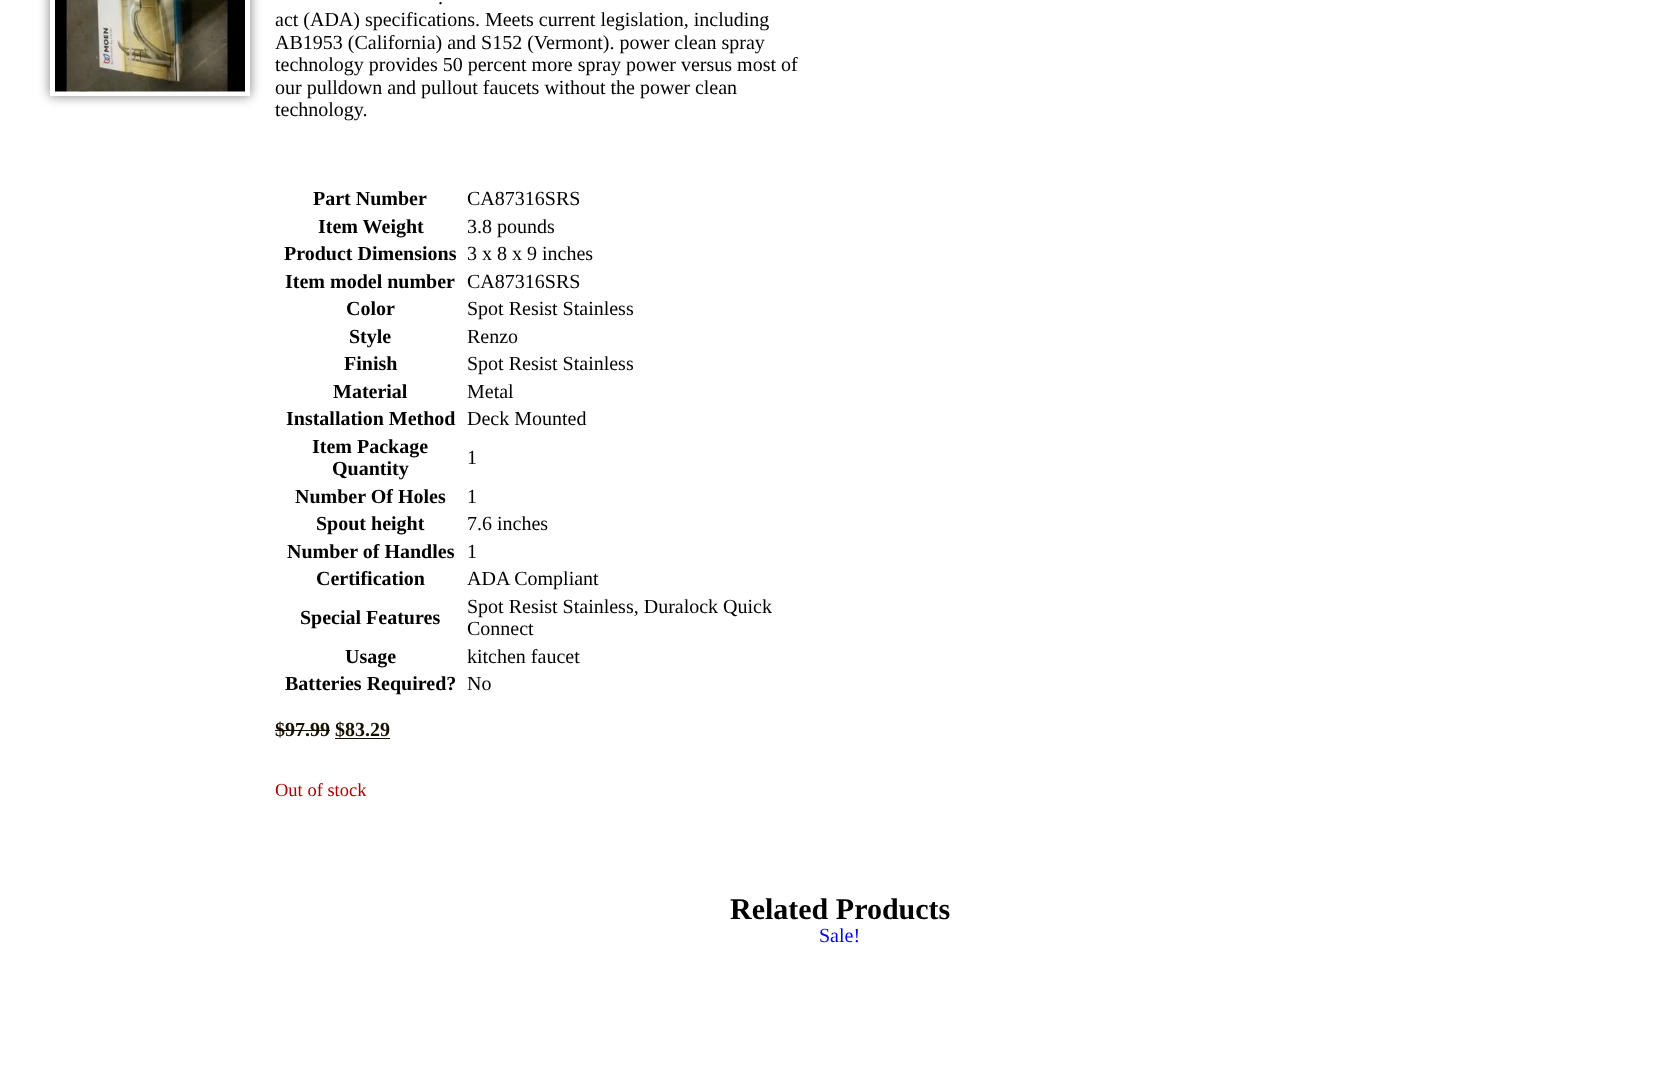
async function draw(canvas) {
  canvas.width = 1680;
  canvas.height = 1068;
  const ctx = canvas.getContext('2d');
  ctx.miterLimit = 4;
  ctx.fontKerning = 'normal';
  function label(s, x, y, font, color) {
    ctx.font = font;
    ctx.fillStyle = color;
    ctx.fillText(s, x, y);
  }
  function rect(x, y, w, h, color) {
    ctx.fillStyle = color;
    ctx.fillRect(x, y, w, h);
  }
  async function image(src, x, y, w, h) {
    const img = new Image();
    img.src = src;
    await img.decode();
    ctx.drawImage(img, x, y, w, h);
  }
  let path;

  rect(0, 0, 1680, 1068, '#fff');
  ctx.save();
  path = new Path2D('M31 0H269V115H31ZM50-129H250V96H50Z');
  ctx.clip(path, 'evenodd');
  ctx.fillStyle = '#00000080';
  ctx.filter = 'blur(6px)';
  ctx.beginPath();
  ctx.rect(50, -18, 200, 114);
  ctx.fill();
  ctx.filter = 'none';
  ctx.restore();
  await image('assets/img1.png', 55, 0, 190, 92);
  label('.', 438, 4, '20px Liberation Serif', '#000');
  label('act (ADA) specifications. Meets current legislation, including', 275, 26, '20px Liberation Serif', '#000');
  label('AB1953 (California) and S152 (Vermont). power clean spray', 275, 49, '20px Liberation Serif', '#000');
  label('technology provides 50 percent more spray power versus most of', 275, 71, '20px Liberation Serif', '#000');
  label('our pulldown and pullout faucets without the power clean', 275, 94, '20px Liberation Serif', '#000');
  label('technology.', 275, 116, '20px Liberation Serif', '#000');
  label('Part Number', 313, 205, 'bold 20px Liberation Serif', '#000');
  label('CA87316SRS', 467, 205, '20px Liberation Serif', '#000');
  label('Item Weight', 318, 233, 'bold 20px Liberation Serif', '#000');
  label('3.8 pounds', 467, 233, '20px Liberation Serif', '#000');
  label('Product Dimensions', 284, 260, 'bold 20px Liberation Serif', '#000');
  label('3 x 8 x 9 inches', 467, 260, '20px Liberation Serif', '#000');
  label('Item model number', 285, 288, 'bold 20px Liberation Serif', '#000');
  label('CA87316SRS', 467, 288, '20px Liberation Serif', '#000');
  label('Color', 346, 315, 'bold 20px Liberation Serif', '#000');
  label('Spot Resist Stainless', 467, 315, '20px Liberation Serif', '#000');
  label('Style', 349, 343, 'bold 20px Liberation Serif', '#000');
  label('Renzo', 467, 343, '20px Liberation Serif', '#000');
  label('Finish', 344, 370, 'bold 20px Liberation Serif', '#000');
  label('Spot Resist Stainless', 467, 370, '20px Liberation Serif', '#000');
  label('Material', 333, 398, 'bold 20px Liberation Serif', '#000');
  label('Metal', 467, 398, '20px Liberation Serif', '#000');
  label('Installation Method', 286, 425, 'bold 20px Liberation Serif', '#000');
  label('Deck Mounted', 467, 425, '20px Liberation Serif', '#000');
  label('Item Package', 312, 453, 'bold 20px Liberation Serif', '#000');
  label('Quantity', 332, 475, 'bold 20px Liberation Serif', '#000');
  label('1', 467, 464, '20px Liberation Serif', '#000');
  label('Number Of Holes', 295, 503, 'bold 20px Liberation Serif', '#000');
  label('1', 467, 503, '20px Liberation Serif', '#000');
  label('Spout height', 316, 530, 'bold 20px Liberation Serif', '#000');
  label('7.6 inches', 467, 530, '20px Liberation Serif', '#000');
  label('Number of Handles', 287, 558, 'bold 20px Liberation Serif', '#000');
  label('1', 467, 558, '20px Liberation Serif', '#000');
  label('Certification', 316, 585, 'bold 20px Liberation Serif', '#000');
  label('ADA Compliant', 467, 585, '20px Liberation Serif', '#000');
  label('Special Features', 300, 624, 'bold 20px Liberation Serif', '#000');
  label('Spot Resist Stainless, Duralock Quick', 467, 613, '20px Liberation Serif', '#000');
  label('Connect', 467, 635, '20px Liberation Serif', '#000');
  label('Usage', 345, 663, 'bold 20px Liberation Serif', '#000');
  label('kitchen faucet', 467, 663, '20px Liberation Serif', '#000');
  label('Batteries Required?', 285, 690, 'bold 20px Liberation Serif', '#000');
  label('No', 467, 690, '20px Liberation Serif', '#000');
  label('$97.99 $83.29', 275, 736, 'bold 20px Liberation Serif', '#161000');
  rect(275, 730, 55, 1, '#161000');
  rect(335, 738, 55, 1, '#161000');
  label('Out of stock', 275, 796, '18.5px Liberation Serif', '#a00');
  label('Related Products', 730, 919, 'bold 30px Liberation Serif', '#000');
  label('Sale!', 819, 942, '20px Liberation Serif', '#00e');
}

draw(document.querySelector('canvas'));
